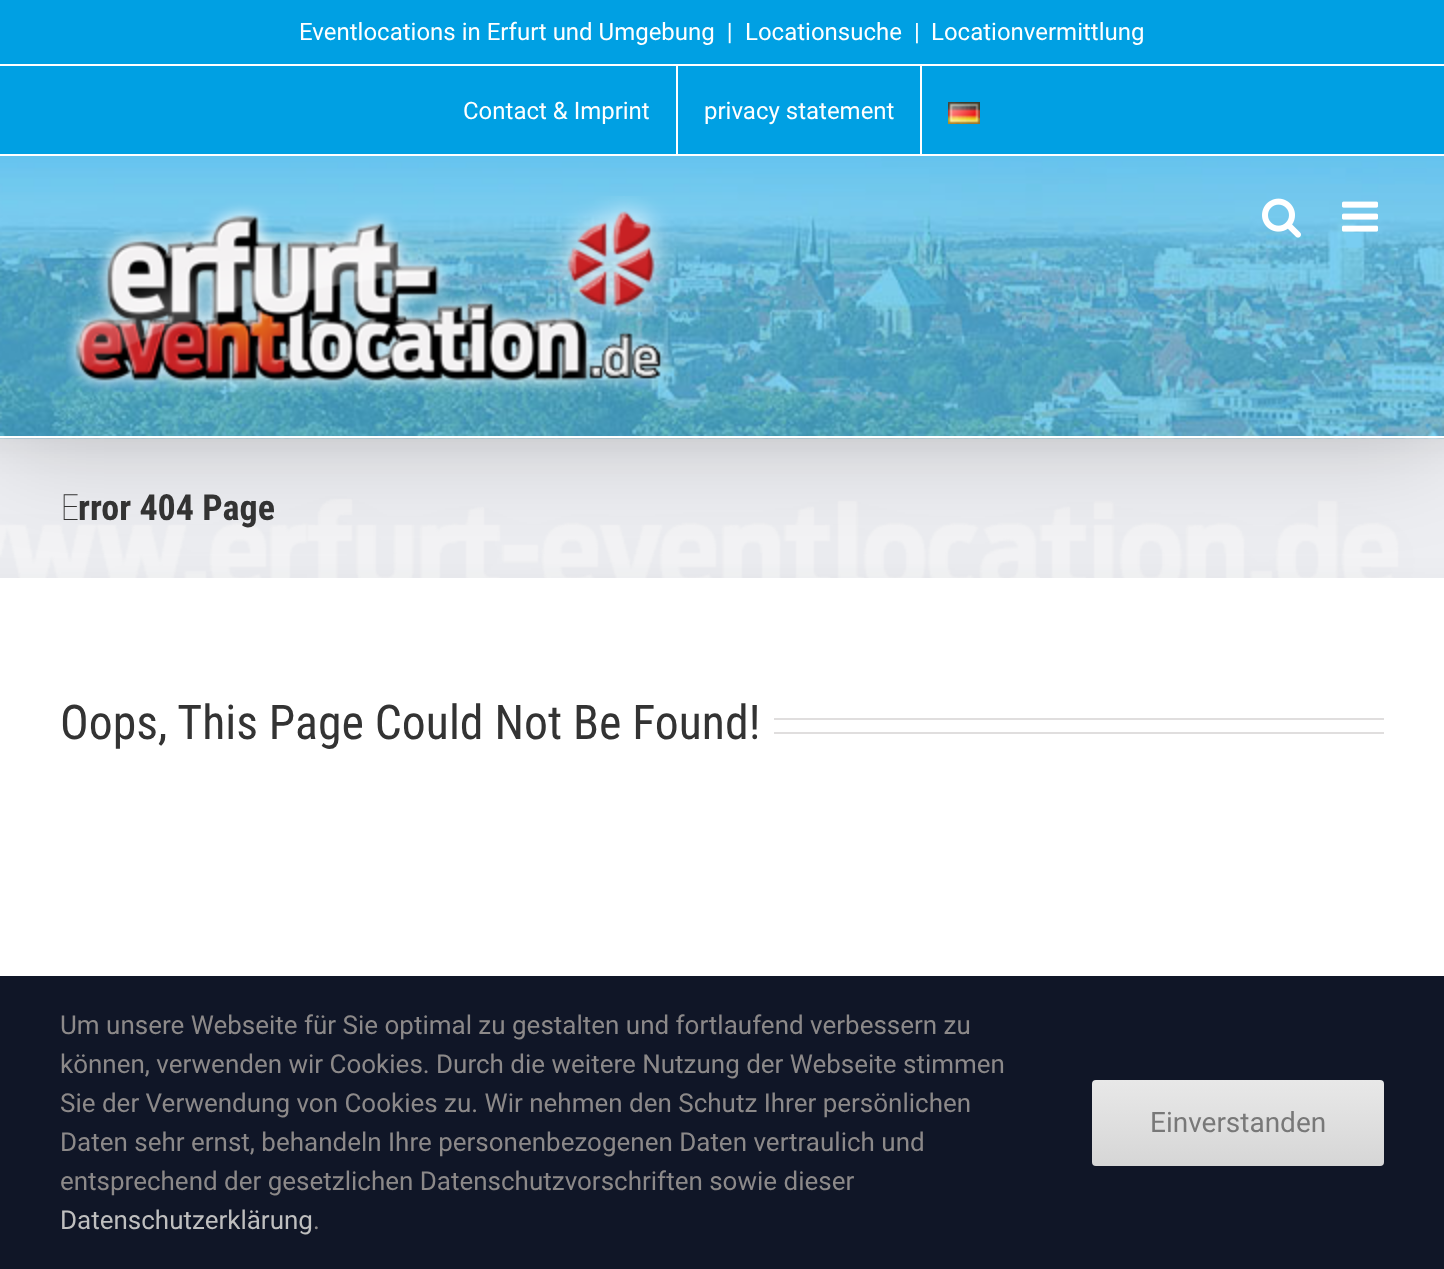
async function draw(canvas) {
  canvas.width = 1444;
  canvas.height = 1269;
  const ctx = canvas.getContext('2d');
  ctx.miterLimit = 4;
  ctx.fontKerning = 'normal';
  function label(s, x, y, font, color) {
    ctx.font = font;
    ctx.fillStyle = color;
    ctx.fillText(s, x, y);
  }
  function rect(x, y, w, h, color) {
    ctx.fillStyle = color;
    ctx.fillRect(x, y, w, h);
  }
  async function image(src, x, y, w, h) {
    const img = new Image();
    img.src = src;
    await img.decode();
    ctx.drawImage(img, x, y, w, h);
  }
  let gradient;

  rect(0, 0, 1444, 1269, '#fff');
  await image('assets/img6.png', 0, 438, 1444, 140);
  ctx.fillStyle = '#00000024';
  ctx.filter = 'blur(50px)';
  ctx.beginPath();
  ctx.rect(4, 24, 1436, 430);
  ctx.fill();
  ctx.filter = 'none';
  rect(0, 0, 1444, 154, '#00a0e3');
  rect(0, 154, 1444, 2, '#fff');
  rect(0, 64, 1444, 2, '#fff');
  label('Eventlocations in Erfurt und Umgebung  |', 299, 40, '24px Roboto', '#fff');
  label('Locationsuche', 745, 40, '24px Roboto', '#fff');
  label('|', 914, 40, '24px Roboto', '#fff');
  label('Locationvermittlung', 931, 40, '24px Roboto', '#fff');
  label('Contact & Imprint', 463, 119, '24px Roboto', '#fff');
  rect(676, 66, 2, 88, '#fff');
  label('privacy statement', 704, 119, '24px Roboto', '#fff');
  rect(920, 66, 2, 88, '#fff');
  await image('assets/img1.png', 948, 102, 32, 22);
  await image('assets/img2.png', 0, 156, 1444, 283);
  rect(0, 436, 1444, 2, '#fff');
  await image('assets/img3.png', 64, 196, 613, 197);
  await image('assets/img4.png', 1262, 198, 39, 40);
  await image('assets/img5.png', 1342, 201, 36, 31);
  label('E', 60, 520, '100 36px Noto Sans', '#333');
  label('rror 404 Page', 78, 520, 'bold 36px Roboto Condensed', '#333');
  label('Oops, This Page Could Not Be Found!', 60, 739, '47.75px Roboto Condensed', '#333');
  rect(774, 718, 610, 2, '#e0dede');
  rect(774, 732, 610, 2, '#e0dede');
  rect(0, 976, 1444, 293, '#101627');
  label('Um unsere Webseite für Sie optimal zu gestalten und fortlaufend verbessern zu', 60, 1034, '26px Roboto', '#8c8989');
  label('können, verwenden wir Cookies. Durch die weitere Nutzung der Webseite stimmen', 60, 1073, '26px Roboto', '#8c8989');
  label('Sie der Verwendung von Cookies zu. Wir nehmen den Schutz Ihrer persönlichen', 60, 1112, '26px Roboto', '#8c8989');
  label('Daten sehr ernst, behandeln Ihre personenbezogenen Daten vertraulich und', 60, 1151, '26px Roboto', '#8c8989');
  label('entsprechend der gesetzlichen Datenschutzvorschriften sowie dieser', 60, 1190, '26px Roboto', '#8c8989');
  label('Datenschutzerklärung', 60, 1229, '26px Roboto', '#bfbfbf');
  label('.', 313, 1229, '26px Roboto', '#8c8989');
  gradient = ctx.createLinearGradient(1238, 1080, 1238, 1166);
  gradient.addColorStop(0, '#e8e8e8');
  gradient.addColorStop(1, '#d6d6d6');
  ctx.fillStyle = gradient;
  ctx.beginPath();
  ctx.roundRect(1092, 1080, 292, 86, 4);
  ctx.fill();
  label('Einverstanden', 1150, 1132, '28px Roboto', '#787878');
}

draw(document.querySelector('canvas'));
